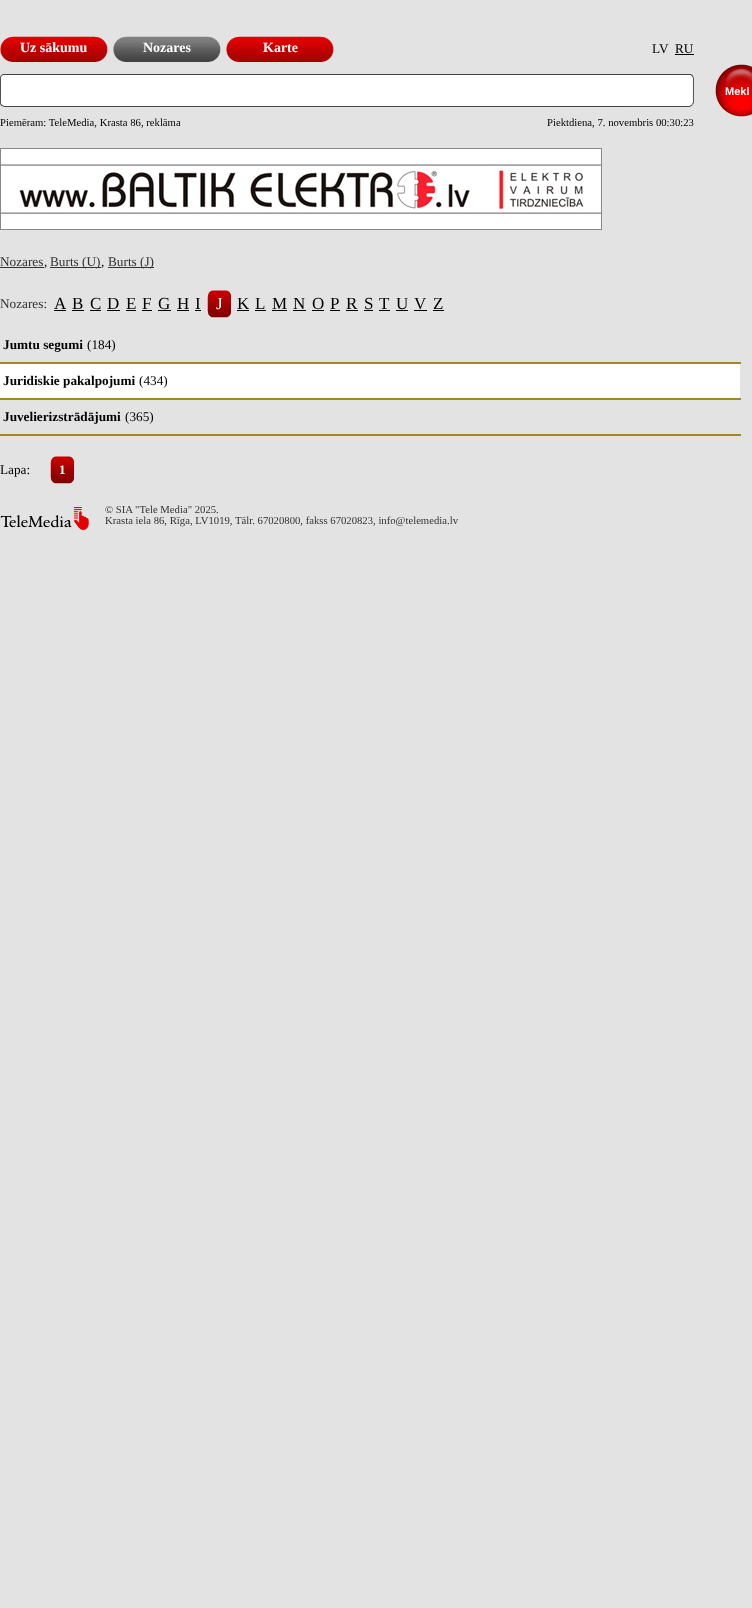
async function draw(canvas) {
  canvas.width = 752;
  canvas.height = 1608;
  const ctx = canvas.getContext('2d');
  ctx.miterLimit = 4;
  ctx.fontKerning = 'normal';
  function label(s, x, y, font, color) {
    ctx.font = font;
    ctx.fillStyle = color;
    ctx.fillText(s, x, y);
  }
  function rect(x, y, w, h, color) {
    ctx.fillStyle = color;
    ctx.fillRect(x, y, w, h);
  }
  async function image(src, x, y, w, h) {
    const img = new Image();
    img.src = src;
    await img.decode();
    ctx.drawImage(img, x, y, w, h);
  }

  rect(0, 0, 752, 1608, '#e4e3e3');
  await image('assets/img1.png', 0, 36, 108, 26);
  label('Uz sākumu', 20, 52, 'bold 14px Liberation Serif', '#fff');
  await image('assets/img2.png', 113, 36, 108, 26);
  label('Nozares', 143, 52, 'bold 14px Liberation Serif', '#fff');
  await image('assets/img1.png', 226, 36, 108, 26);
  label('Karte', 263, 52, 'bold 14px Liberation Serif', '#fff');
  label('LV', 652, 53, '13.25px Liberation Serif', '#000');
  label('RU', 675, 53, '13.25px Liberation Serif', '#000');
  rect(675, 54, 19, 1, '#000');
  await image('assets/img3.png', 0, 74, 694, 33);
  await image('assets/img4.png', 715, 64, 37, 53);
  label('Mekl', 725, 95, 'bold 11px Liberation Sans', '#fff');
  label('Piemēram: TeleMedia, Krasta 86, reklāma', 0, 126, '10.7px Liberation Serif', '#000');
  label('Piektdiena, 7. novembris 00:30:23', 547, 126, '10.7px Liberation Serif', '#000');
  ctx.strokeStyle = '#888';
  ctx.strokeRect(0.5, 148.5, 601, 81);
  await image('assets/img5.png', 1, 149, 600, 80);
  label('Nozares', 0, 266, '13.25px Liberation Serif', '#333');
  rect(0, 267, 44, 1, '#333');
  label(',', 44, 266, '13.25px Liberation Serif', '#000');
  rect(50, 267, 51, 1, '#333');
  label('Burts (U)', 50, 266, '13.25px Liberation Serif', '#333');
  label(',', 101, 266, '13.25px Liberation Serif', '#000');
  rect(108, 267, 46, 1, '#333');
  label('Burts (J)', 108, 266, '13.25px Liberation Serif', '#333');
  label('Nozares:', 0, 308, '13.25px Liberation Serif', '#333');
  label('A', 54, 309, '17px Liberation Serif', '#000');
  rect(54, 310, 12, 1, '#000');
  label('B', 72, 309, '17px Liberation Serif', '#000');
  rect(72, 310, 12, 1, '#000');
  label('C', 90, 309, '17px Liberation Serif', '#000');
  rect(90, 310, 11, 1, '#000');
  label('D', 107, 309, '17px Liberation Serif', '#000');
  rect(107, 310, 13, 1, '#000');
  label('E', 126, 309, '17px Liberation Serif', '#000');
  rect(126, 310, 10, 1, '#000');
  label('F', 142, 309, '17px Liberation Serif', '#000');
  rect(142, 310, 10, 1, '#000');
  label('G', 158, 309, '17px Liberation Serif', '#000');
  rect(158, 310, 13, 1, '#000');
  label('H', 177, 309, '17px Liberation Serif', '#000');
  rect(177, 310, 12, 1, '#000');
  label('I', 195, 309, '17px Liberation Serif', '#000');
  rect(195, 310, 6, 1, '#000');
  await image('assets/img6.png', 207, 290, 24, 28);
  label('J', 216, 309, '17px Liberation Serif', '#fff');
  label('K', 237, 309, '17px Liberation Serif', '#000');
  rect(237, 310, 12, 1, '#000');
  label('L', 255, 309, '17px Liberation Serif', '#000');
  rect(255, 310, 11, 1, '#000');
  label('M', 272, 309, '17px Liberation Serif', '#000');
  rect(272, 310, 15, 1, '#000');
  label('N', 293, 309, '17px Liberation Serif', '#000');
  rect(293, 310, 13, 1, '#000');
  label('O', 312, 309, '17px Liberation Serif', '#000');
  rect(312, 310, 12, 1, '#000');
  label('P', 330, 309, '17px Liberation Serif', '#000');
  rect(330, 310, 10, 1, '#000');
  label('R', 346, 309, '17px Liberation Serif', '#000');
  rect(346, 310, 12, 1, '#000');
  label('S', 364, 309, '17px Liberation Serif', '#000');
  rect(364, 310, 9, 1, '#000');
  label('T', 379, 309, '17px Liberation Serif', '#000');
  rect(379, 310, 11, 1, '#000');
  label('U', 396, 309, '17px Liberation Serif', '#000');
  rect(396, 310, 12, 1, '#000');
  label('V', 414, 309, '17px Liberation Serif', '#000');
  rect(414, 310, 13, 1, '#000');
  label('Z', 433, 309, '17px Liberation Serif', '#000');
  rect(433, 310, 11, 1, '#000');
  rect(0, 362, 741, 2, '#a48527');
  label('Jumtu segumi', 3, 349, 'bold 13.25px Liberation Serif', '#000');
  label('(184)', 87, 349, '13.25px Liberation Serif', '#000');
  rect(0, 364, 740, 34, '#fff');
  rect(0, 398, 741, 2, '#a48527');
  label('Juridiskie pakalpojumi', 3, 385, 'bold 13.25px Liberation Serif', '#000');
  label('(434)', 139, 385, '13.25px Liberation Serif', '#000');
  rect(0, 434, 741, 2, '#a48527');
  label('Juvelierizstrādājumi', 3, 421, 'bold 13.25px Liberation Serif', '#000');
  label('(365)', 125, 421, '13.25px Liberation Serif', '#000');
  label('Lapa:', 0, 474, '13.25px Liberation Serif', '#000');
  await image('assets/img6.png', 50, 456, 24, 28);
  label('1', 59, 474, 'bold 13px Liberation Serif', '#fff');
  await image('assets/img7.png', 0, 507, 89, 23);
  label('© SIA "Tele Media" 2025.', 105, 513, '10.7px Liberation Serif', '#333');
  label('Krasta iela 86, Rīga, LV1019, Tālr. 67020800, fakss 67020823, info@telemedia.lv', 105, 524, '10.7px Liberation Serif', '#333');
}

draw(document.querySelector('canvas'));
